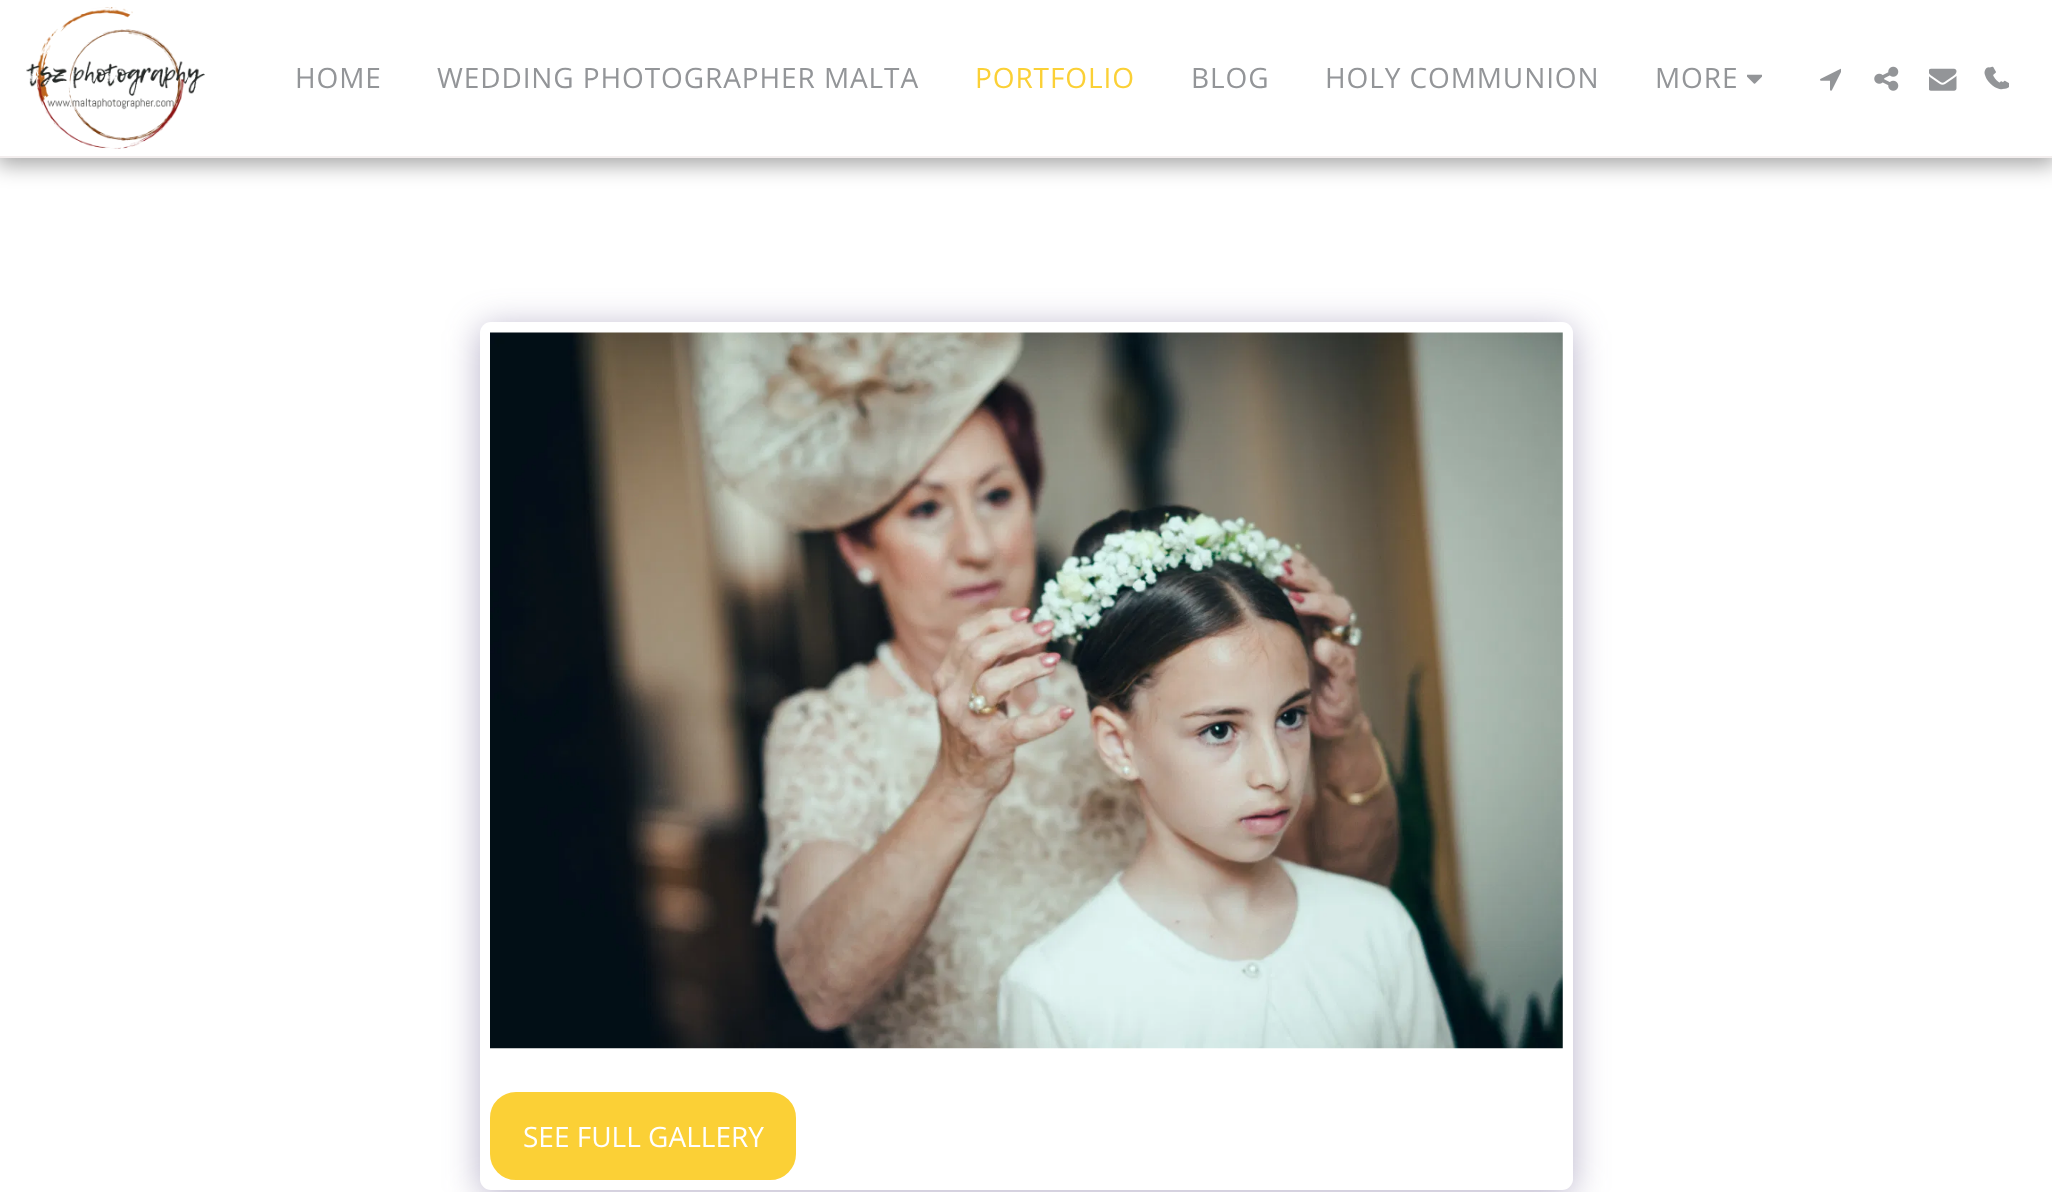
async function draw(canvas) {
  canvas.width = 2052;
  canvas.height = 1192;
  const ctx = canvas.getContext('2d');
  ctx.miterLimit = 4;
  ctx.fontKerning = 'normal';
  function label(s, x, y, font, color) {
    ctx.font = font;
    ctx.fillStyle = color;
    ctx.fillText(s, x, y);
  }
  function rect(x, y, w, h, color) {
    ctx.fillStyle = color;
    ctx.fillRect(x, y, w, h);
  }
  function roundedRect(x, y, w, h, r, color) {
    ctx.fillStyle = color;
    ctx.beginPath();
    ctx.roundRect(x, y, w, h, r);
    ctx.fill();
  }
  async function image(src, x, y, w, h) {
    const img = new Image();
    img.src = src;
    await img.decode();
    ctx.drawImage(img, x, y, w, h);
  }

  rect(0, 0, 2052, 1192, '#fff');
  ctx.fillStyle = '#00000059';
  ctx.filter = 'blur(10.5px)';
  ctx.beginPath();
  ctx.rect(-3, 0, 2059, 165);
  ctx.fill();
  ctx.filter = 'none';
  rect(0, 0, 2052, 156, '#fff');
  rect(0, 156, 2052, 2, '#f3eeee');
  await image('assets/img1.png', 26, 7, 179, 142);
  ctx.letterSpacing = '0.9px';
  label('HOME', 295, 88, '28px Open Sans', '#939598');
  label('WEDDING PHOTOGRAPHER MALTA', 437, 88, '28px Open Sans', '#939598');
  label('PORTFOLIO', 975, 88, '28px Open Sans', '#fbd036');
  label('BLOG', 1191, 88, '28px Open Sans', '#939598');
  label('HOLY COMMUNION', 1325, 88, '28px Open Sans', '#939598');
  label('MORE', 1655, 88, '28px Open Sans', '#939598');
  await image('assets/img2.png', 1747, 74, 15, 10);
  await image('assets/img3.png', 1820, 68, 21, 23);
  await image('assets/img4.png', 1874, 66, 25, 25);
  await image('assets/img5.png', 1929, 68, 28, 23);
  await image('assets/img6.png', 1989, 66, 20, 23);
  await image('assets/img7.png', 1984, 67, 21, 23);
  ctx.fillStyle = '#4d3f7a66';
  ctx.filter = 'blur(17.5px)';
  ctx.beginPath();
  ctx.roundRect(480, 327, 1093, 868, 11);
  ctx.fill();
  ctx.filter = 'none';
  roundedRect(480, 322, 1093, 868, 11, '#fff');
  await image('assets/img8.png', 490, 332, 1073, 717);
  ctx.fillStyle = '#fbd036';
  ctx.beginPath();
  ctx.roundRect(491, 1093, 304, 86, 25);
  ctx.fill();
  ctx.strokeStyle = '#fbd036';
  ctx.lineWidth = 2;
  ctx.stroke();
  ctx.letterSpacing = '0px';
  label('SEE FULL GALLERY', 523, 1147, '28px Open Sans', '#fff');
}

draw(document.querySelector('canvas'));
